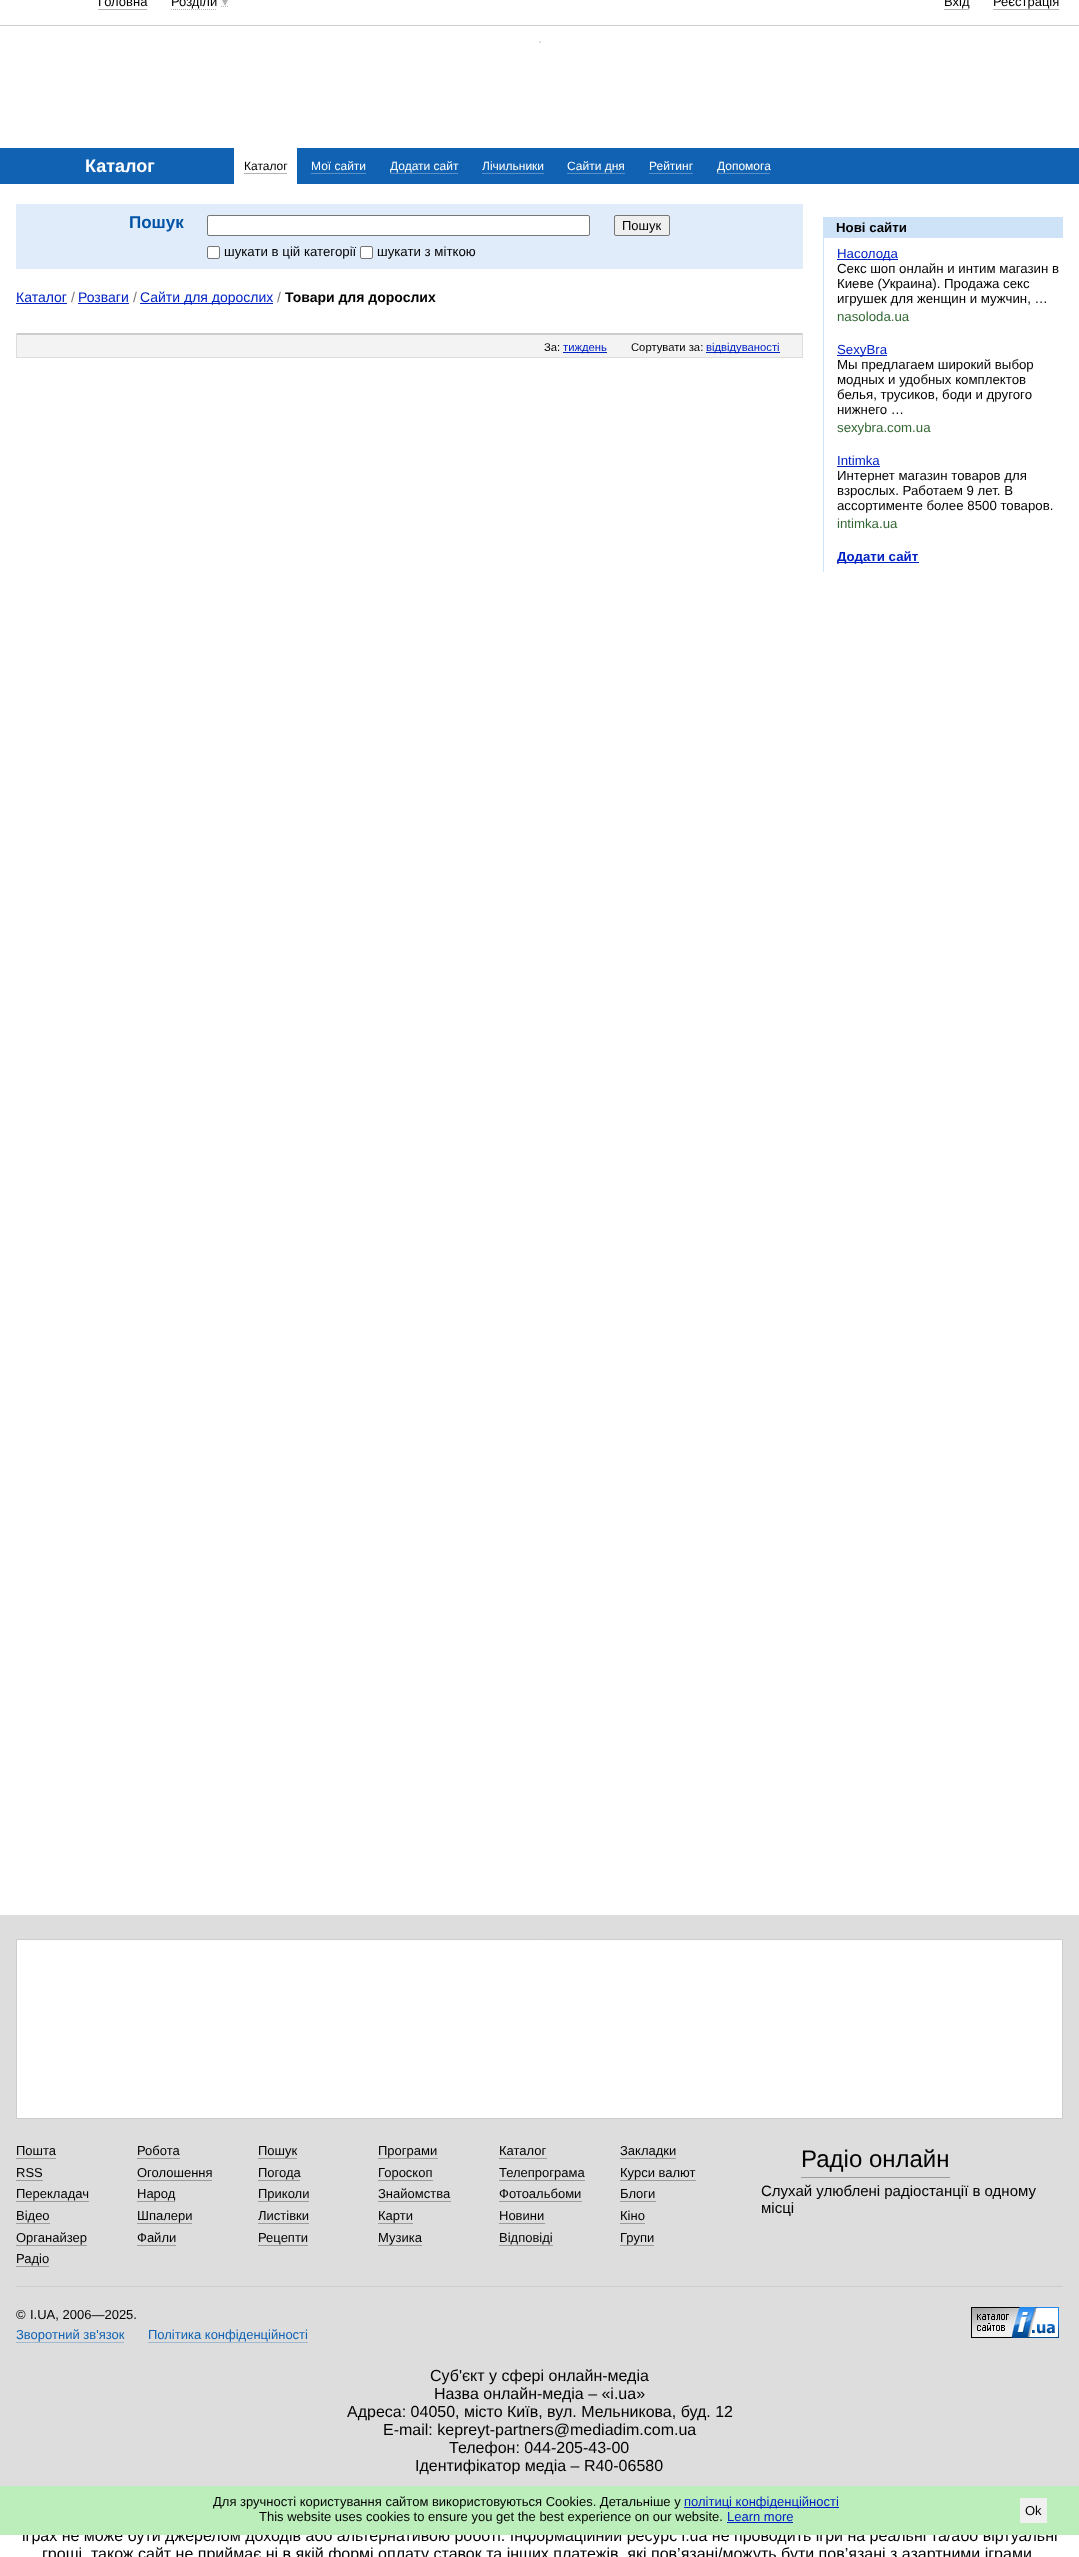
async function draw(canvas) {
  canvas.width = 1079;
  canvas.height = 2557;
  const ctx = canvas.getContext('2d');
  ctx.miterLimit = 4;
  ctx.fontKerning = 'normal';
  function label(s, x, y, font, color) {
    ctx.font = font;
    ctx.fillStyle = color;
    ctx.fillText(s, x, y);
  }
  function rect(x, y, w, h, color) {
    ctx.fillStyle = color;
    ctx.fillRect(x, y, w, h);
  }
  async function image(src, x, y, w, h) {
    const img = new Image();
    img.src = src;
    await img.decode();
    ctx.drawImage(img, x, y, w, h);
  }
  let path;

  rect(0, 0, 1079, 2557, '#fff');
  rect(0, 25, 1079, 1, '#ccc');
  label('Головна', 98, 6, '13px Liberation Sans', '#000');
  rect(98, 9, 49, 1, '#b3b3b3');
  path = new Path2D('M171 9.5H217M221 6.5H229');
  ctx.strokeStyle = '#b3b3b3';
  ctx.setLineDash([1, 1]);
  ctx.stroke(path);
  label('Розділи', 171, 6, '13px Liberation Sans', '#000');
  ctx.fillStyle = '#b3b3b3';
  path = new Path2D('M221-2H229L225 6Z');
  ctx.fill(path);
  label('Вхід', 944, 6, '13px Liberation Sans', '#000');
  rect(944, 9, 25, 1, '#b3b3b3');
  label('Реєстрація', 993, 6, '13px Liberation Sans', '#000');
  rect(993, 9, 66, 1, '#b3b3b3');
  rect(539, 41, 2, 2, '#ddd');
  rect(0, 148, 1079, 36, '#1162b3');
  label('Каталог', 85, 172, 'bold 18px Liberation Sans', '#fff');
  rect(234, 148, 63, 36, '#fff');
  label('Каталог', 244, 170, '12px Liberation Sans', '#000');
  rect(244, 173, 43, 1, '#b3b3b3');
  label('Мої сайти', 311, 170, '12px Liberation Sans', '#fff');
  rect(311, 173, 55, 1, '#5891ca');
  label('Додати сайт', 390, 170, '12px Liberation Sans', '#fff');
  rect(390, 173, 68, 1, '#5891ca');
  label('Лічильники', 482, 170, '12px Liberation Sans', '#fff');
  rect(482, 173, 62, 1, '#5891ca');
  label('Сайти дня', 567, 170, '12px Liberation Sans', '#fff');
  rect(567, 173, 58, 1, '#5891ca');
  label('Рейтинг', 649, 170, '12px Liberation Sans', '#fff');
  rect(649, 173, 44, 1, '#5891ca');
  label('Допомога', 717, 170, '12px Liberation Sans', '#fff');
  rect(717, 173, 53, 1, '#5891ca');
  rect(16, 204, 787, 65, '#e1ecfa');
  label('Пошук', 129, 228, 'bold 17px Liberation Sans', '#0053a5');
  ctx.fillStyle = '#efefef';
  ctx.beginPath();
  ctx.roundRect(614.5, 215.5, 55, 20, 1.5);
  ctx.fill();
  ctx.strokeStyle = '#767676';
  ctx.setLineDash([]);
  ctx.stroke();
  label('Пошук', 622, 230, '13px Liberation Sans', '#000');
  ctx.fillStyle = '#fff';
  ctx.beginPath();
  ctx.roundRect(207.5, 215.5, 382, 20, 1.5);
  ctx.fill();
  ctx.stroke();
  ctx.beginPath();
  ctx.roundRect(207.5, 246.5, 12, 12, 1.5);
  ctx.fill();
  ctx.stroke();
  label('шукати в цій категорії', 224, 256, '13.25px Liberation Sans', '#000');
  ctx.fillStyle = '#fff';
  ctx.beginPath();
  ctx.roundRect(360.5, 246.5, 12, 12, 1.5);
  ctx.fill();
  ctx.stroke();
  label('шукати з міткою', 377, 256, '13.25px Liberation Sans', '#000');
  label('Каталог', 16, 302, '14px Liberation Sans', '#0021c3');
  rect(16, 303, 51, 1, '#0021c3');
  label('/', 71, 302, '14px Liberation Sans', '#777');
  label('Розваги', 78, 302, '14px Liberation Sans', '#0021c3');
  rect(78, 303, 51, 1, '#0021c3');
  label('/', 133, 302, '14px Liberation Sans', '#777');
  rect(140, 303, 133, 1, '#0021c3');
  label('Сайти для дорослих', 140, 302, '14px Liberation Sans', '#0021c3');
  label('/', 277, 302, '14px Liberation Sans', '#777');
  label('Товари для дорослих', 285, 302, 'bold 14px Liberation Sans', '#000');
  rect(17, 335, 785, 22, '#f3f3f3');
  ctx.fillStyle = '#ccc';
  path = new Path2D('M16 333H803L802 335H17Z');
  ctx.fill(path);
  ctx.fillStyle = '#ddd';
  path = new Path2D('M803 333V358L802 357V335Z');
  ctx.fill(path);
  rect(16, 357, 787, 1, '#ddd');
  path = new Path2D('M16 358V333L17 335V357Z');
  ctx.fill(path);
  label('За:', 544, 351, '11.25px Liberation Sans', '#000');
  rect(563, 352, 44, 1, '#0021c3');
  label('тиждень', 563, 351, '11.25px Liberation Sans', '#0021c3');
  label('Сортувати за:', 631, 351, '11.25px Liberation Sans', '#000');
  rect(706, 352, 74, 1, '#0021c3');
  label('відвідуваності', 706, 351, '11.25px Liberation Sans', '#0021c3');
  rect(823, 217, 240, 21, '#cee3f7');
  label('Нові сайти', 836, 232, 'bold 13.25px Liberation Sans', '#000');
  rect(823, 238, 1, 334, '#cee3f7');
  rect(837, 259, 61, 1, '#0021c3');
  label('Насолода', 837, 258, '13.25px Liberation Sans', '#0021c3');
  label('Секс шоп онлайн и интим магазин в', 837, 273, '13.25px Liberation Sans', '#000');
  label('Киеве (Украина). Продажа секс', 837, 288, '13.25px Liberation Sans', '#000');
  label('игрушек для женщин и мужчин, …', 837, 303, '13.25px Liberation Sans', '#000');
  label('nasoloda.ua', 837, 321, '13.25px Liberation Sans', '#363');
  rect(837, 355, 50, 1, '#0021c3');
  label('SexyBra', 837, 354, '13.25px Liberation Sans', '#0021c3');
  label('Мы предлагаем широкий выбор', 837, 369, '13.25px Liberation Sans', '#000');
  label('модных и удобных комплектов', 837, 384, '13.25px Liberation Sans', '#000');
  label('белья, трусиков, боди и другого', 837, 399, '13.25px Liberation Sans', '#000');
  label('нижнего …', 837, 414, '13.25px Liberation Sans', '#000');
  label('sexybra.com.ua', 837, 432, '13.25px Liberation Sans', '#363');
  label('Intimka', 837, 465, '13.25px Liberation Sans', '#0021c3');
  rect(837, 466, 43, 1, '#0021c3');
  label('Интернет магазин товаров для', 837, 480, '13.25px Liberation Sans', '#000');
  label('взрослых. Работаем 9 лет. В', 837, 495, '13.25px Liberation Sans', '#000');
  label('ассортименте более 8500 товаров.', 837, 510, '13.25px Liberation Sans', '#000');
  label('intimka.ua', 837, 528, '13.25px Liberation Sans', '#363');
  rect(837, 562, 82, 1, '#0021c3');
  label('Додати сайт', 837, 561, 'bold 13.25px Liberation Sans', '#0021c3');
  rect(0, 1915, 1079, 571, '#ddd');
  ctx.fillStyle = '#fff';
  ctx.beginPath();
  ctx.rect(16.5, 1939.5, 1046, 179);
  ctx.fill();
  ctx.strokeStyle = '#ccc';
  ctx.stroke();
  label('Пошта', 16, 2155, '13px Liberation Sans', '#000');
  rect(16, 2158, 40, 1, '#9b9b9b');
  label('Робота', 137, 2155, '13px Liberation Sans', '#000');
  rect(137, 2158, 43, 1, '#9b9b9b');
  label('Пошук', 258, 2155, '13px Liberation Sans', '#000');
  rect(258, 2158, 39, 1, '#9b9b9b');
  label('Програми', 378, 2155, '13px Liberation Sans', '#000');
  rect(378, 2158, 60, 1, '#9b9b9b');
  label('Каталог', 499, 2155, '13px Liberation Sans', '#000');
  rect(499, 2158, 48, 1, '#9b9b9b');
  label('Закладки', 620, 2155, '13px Liberation Sans', '#000');
  rect(620, 2158, 56, 1, '#9b9b9b');
  label('RSS', 16, 2177, '13px Liberation Sans', '#000');
  rect(16, 2180, 27, 1, '#9b9b9b');
  label('Оголошення', 137, 2177, '13px Liberation Sans', '#000');
  rect(137, 2180, 75, 1, '#9b9b9b');
  label('Погода', 258, 2177, '13px Liberation Sans', '#000');
  rect(258, 2180, 42, 1, '#9b9b9b');
  label('Гороскоп', 378, 2177, '13px Liberation Sans', '#000');
  rect(378, 2180, 55, 1, '#9b9b9b');
  label('Телепрограма', 499, 2177, '13px Liberation Sans', '#000');
  rect(499, 2180, 86, 1, '#9b9b9b');
  label('Курси валют', 620, 2177, '13px Liberation Sans', '#000');
  rect(620, 2180, 76, 1, '#9b9b9b');
  label('Перекладач', 16, 2198, '13px Liberation Sans', '#000');
  rect(16, 2201, 73, 1, '#9b9b9b');
  label('Народ', 137, 2198, '13px Liberation Sans', '#000');
  rect(137, 2201, 38, 1, '#9b9b9b');
  label('Приколи', 258, 2198, '13px Liberation Sans', '#000');
  rect(258, 2201, 51, 1, '#9b9b9b');
  label('Знайомства', 378, 2198, '13px Liberation Sans', '#000');
  rect(378, 2201, 73, 1, '#9b9b9b');
  label('Фотоальбоми', 499, 2198, '13px Liberation Sans', '#000');
  rect(499, 2201, 83, 1, '#9b9b9b');
  label('Блоги', 620, 2198, '13px Liberation Sans', '#000');
  rect(620, 2201, 36, 1, '#9b9b9b');
  label('Відео', 16, 2220, '13px Liberation Sans', '#000');
  rect(16, 2223, 34, 1, '#9b9b9b');
  label('Шпалери', 137, 2220, '13px Liberation Sans', '#000');
  rect(137, 2223, 55, 1, '#9b9b9b');
  label('Листівки', 258, 2220, '13px Liberation Sans', '#000');
  rect(258, 2223, 51, 1, '#9b9b9b');
  label('Карти', 378, 2220, '13px Liberation Sans', '#000');
  rect(378, 2223, 35, 1, '#9b9b9b');
  label('Новини', 499, 2220, '13px Liberation Sans', '#000');
  rect(499, 2223, 46, 1, '#9b9b9b');
  label('Кіно', 620, 2220, '13px Liberation Sans', '#000');
  rect(620, 2223, 25, 1, '#9b9b9b');
  label('Органайзер', 16, 2242, '13px Liberation Sans', '#000');
  rect(16, 2245, 71, 1, '#9b9b9b');
  label('Файли', 137, 2242, '13px Liberation Sans', '#000');
  rect(137, 2245, 39, 1, '#9b9b9b');
  label('Рецепти', 258, 2242, '13px Liberation Sans', '#000');
  rect(258, 2245, 50, 1, '#9b9b9b');
  label('Музика', 378, 2242, '13px Liberation Sans', '#000');
  rect(378, 2245, 44, 1, '#9b9b9b');
  label('Відповіді', 499, 2242, '13px Liberation Sans', '#000');
  rect(499, 2245, 54, 1, '#9b9b9b');
  label('Групи', 620, 2242, '13px Liberation Sans', '#000');
  rect(620, 2245, 34, 1, '#9b9b9b');
  label('Радіо', 16, 2263, '13px Liberation Sans', '#000');
  rect(16, 2266, 33, 1, '#9b9b9b');
  rect(801, 2177, 149, 1, '#9b9b9b');
  label('Радіо онлайн', 801, 2167, '24px Liberation Sans', '#000');
  label('Слухай улюблені радіостанції в одному', 761, 2196, '15px Liberation Sans', '#000');
  label('місці', 761, 2213, '15px Liberation Sans', '#000');
  rect(16, 2286, 1047, 1, '#ccc');
  label('©', 16, 2319, '13px Liberation Sans', '#000');
  label('I.UA, 2006—2025.', 30, 2319, '13px Liberation Sans', '#000');
  await image('assets/img1.png', 971, 2307, 88, 31);
  label('Зворотний зв\'язок', 16, 2339, '13px Liberation Sans', '#1162b3');
  rect(16, 2342, 108, 1, '#a0b8d0');
  label('Політика конфіденційності', 148, 2339, '13px Liberation Sans', '#1162b3');
  rect(148, 2342, 160, 1, '#a0b8d0');
  label('Суб\'єкт у сфері онлайн-медіа', 430, 2381, '16px Liberation Sans', '#000');
  label('Назва онлайн-медіа – «i.ua»', 434, 2399, '16px Liberation Sans', '#000');
  label('Адреса: 04050, місто Київ, вул. Мельникова, буд. 12', 347, 2417, '16px Liberation Sans', '#000');
  label('E-mail: kepreyt-partners@mediadim.com.ua', 383, 2435, '16px Liberation Sans', '#000');
  label('Телефон: 044-205-43-00', 449, 2453, '16px Liberation Sans', '#000');
  label('Ідентифікатор медіа – R40-06580', 415, 2471, '16px Liberation Sans', '#000');
  label('іграх не може бути джерелом доходів або альтернативою роботі. Інформаційний ресурс i.ua не проводить ігри на реальні та/або віртуальні', 22, 2541, '16px Liberation Sans', '#000');
  rect(0, 2486, 1079, 49, '#beb');
  label('Для зручності користування сайтом використовуються Cookies. Детальніше у', 213, 2506, '13px Liberation Sans', '#000');
  rect(684, 2507, 155, 1, '#0021c3');
  label('політиці конфіденційності', 684, 2506, '13px Liberation Sans', '#0021c3');
  label('This website uses cookies to ensure you get the best experience on our website.', 259, 2521, '13px Liberation Sans', '#000');
  label('Learn more', 727, 2521, '13px Liberation Sans', '#0021c3');
  rect(727, 2522, 66, 1, '#0021c3');
  rect(1020, 2498, 27, 25, '#f0f0f0');
  label('Ok', 1025, 2515, '13px Liberation Sans', '#000');
  label('гроші, також сайт не приймає ні в якій формі оплату ставок та інших платежів, які пов’язані/можуть бути пов’язані з азартними іграми', 42, 2559, '16px Liberation Sans', '#000');
}

draw(document.querySelector('canvas'));
